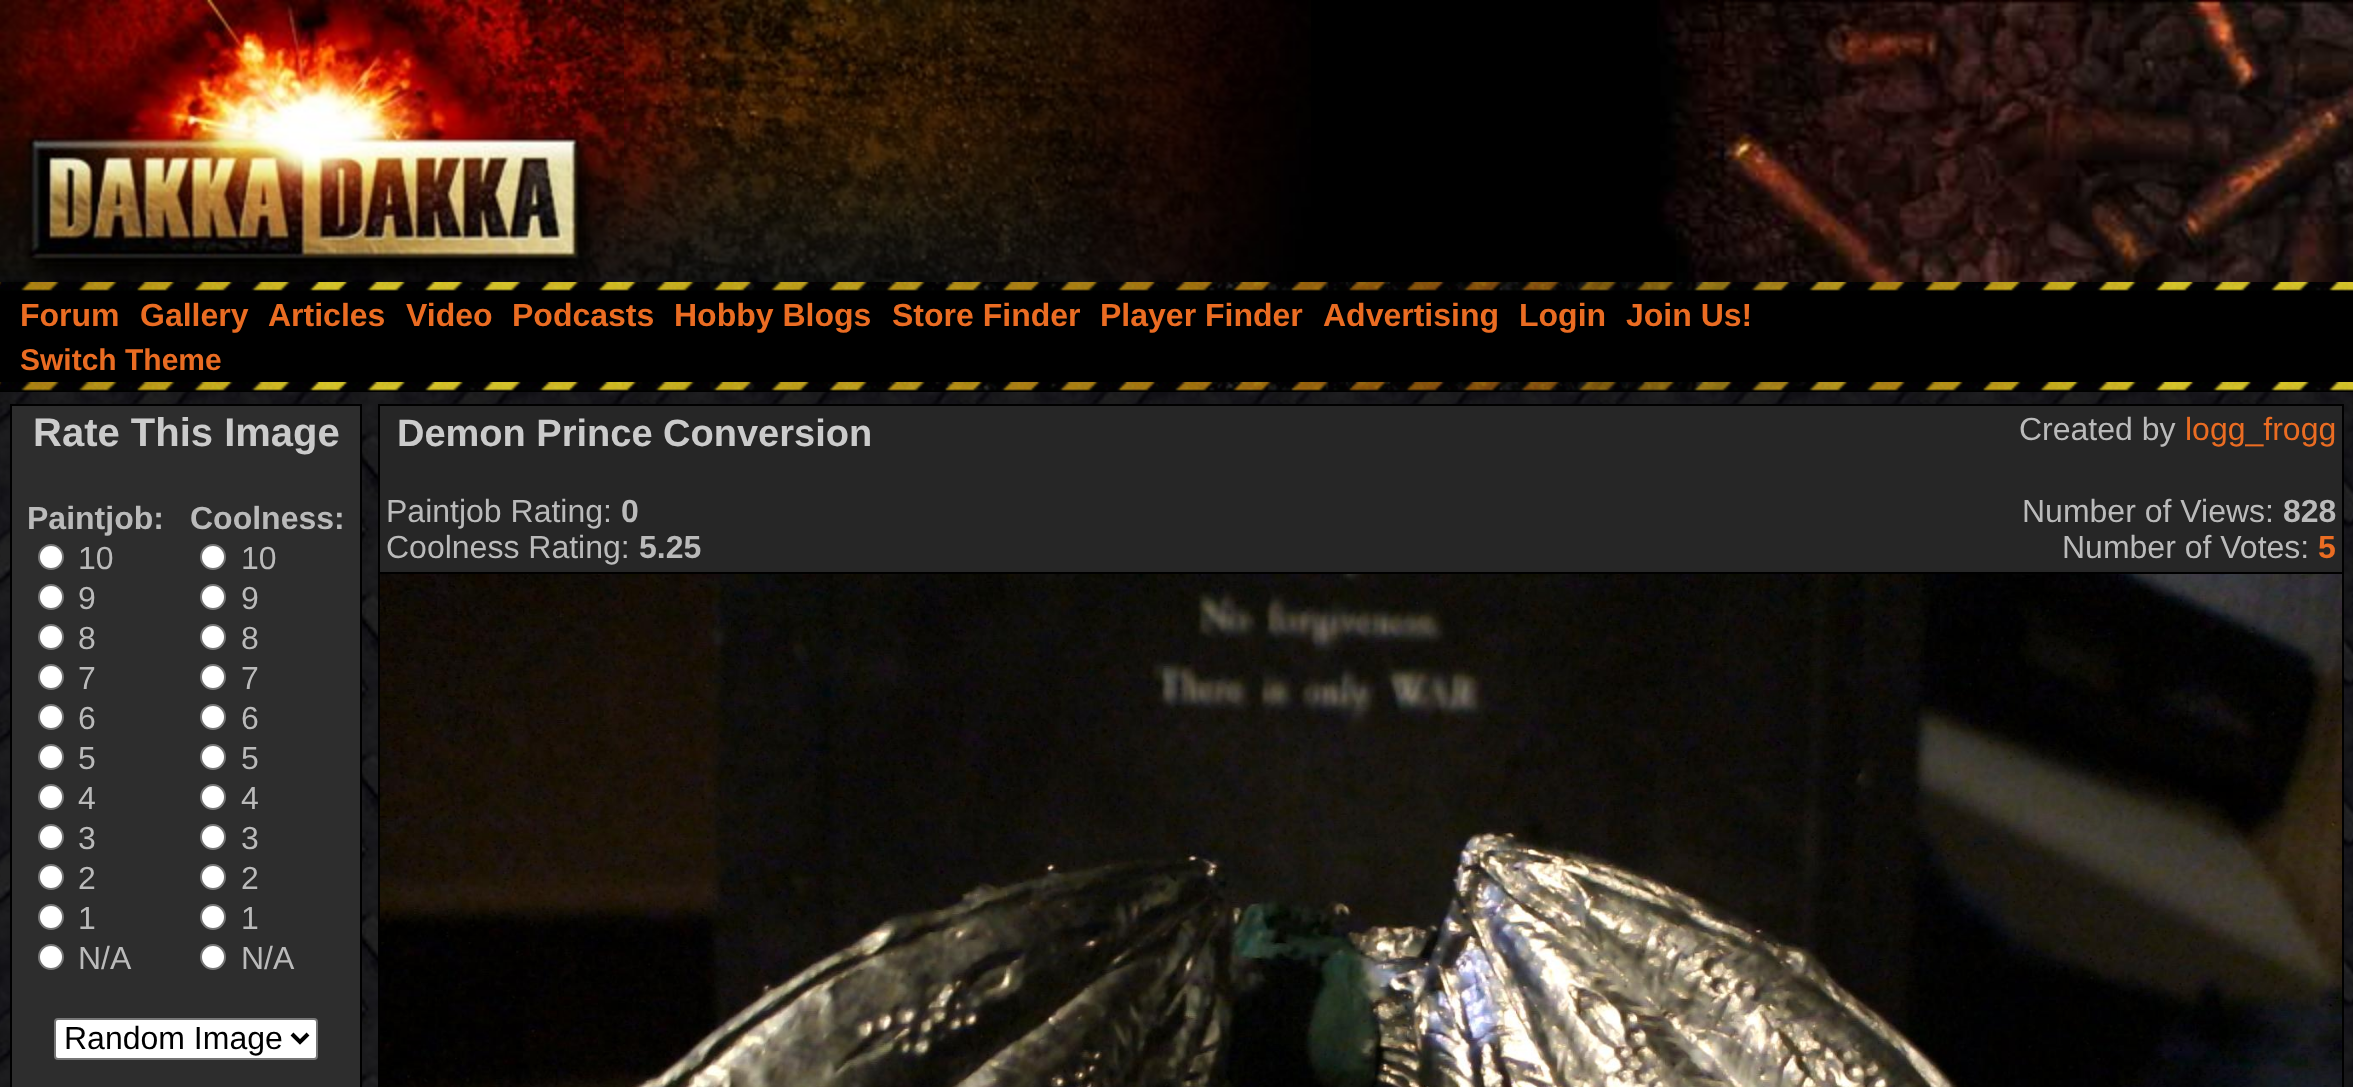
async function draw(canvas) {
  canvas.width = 2353;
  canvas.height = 1087;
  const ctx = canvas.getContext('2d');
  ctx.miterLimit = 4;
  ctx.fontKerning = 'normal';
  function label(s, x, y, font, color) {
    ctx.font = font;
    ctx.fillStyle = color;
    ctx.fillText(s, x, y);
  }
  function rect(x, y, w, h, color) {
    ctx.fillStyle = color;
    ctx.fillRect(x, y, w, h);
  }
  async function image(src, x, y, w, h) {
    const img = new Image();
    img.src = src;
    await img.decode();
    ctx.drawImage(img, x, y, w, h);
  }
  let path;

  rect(0, 0, 2353, 1087, '#fff');
  await image('assets/img1.png', 0, 392, 2353, 695);
  rect(1311, 0, 346, 282, '#000');
  await image('assets/img2.png', 624, 0, 687, 282);
  await image('assets/img3.png', 0, 0, 624, 282);
  await image('assets/img4.png', 1657, 0, 696, 282);
  rect(0, 291, 2353, 91, '#000');
  await image('assets/img5.png', 0, 282, 2353, 9);
  label('Forum', 20, 326, 'bold 32px Liberation Sans', '#ea6c22');
  label('Gallery', 140, 326, 'bold 32px Liberation Sans', '#ea6c22');
  label('Articles', 268, 326, 'bold 32px Liberation Sans', '#ea6c22');
  label('Video', 406, 326, 'bold 32px Liberation Sans', '#ea6c22');
  label('Podcasts', 512, 326, 'bold 32px Liberation Sans', '#ea6c22');
  label('Hobby Blogs', 674, 326, 'bold 32px Liberation Sans', '#ea6c22');
  label('Store Finder', 892, 326, 'bold 32px Liberation Sans', '#ea6c22');
  label('Player Finder', 1100, 326, 'bold 32px Liberation Sans', '#ea6c22');
  label('Advertising', 1323, 326, 'bold 32px Liberation Sans', '#ea6c22');
  label('Login', 1519, 326, 'bold 32px Liberation Sans', '#ea6c22');
  label('Join Us!', 1626, 326, 'bold 32px Liberation Sans', '#ea6c22');
  label('Switch Theme', 20, 370, 'bold 30px Liberation Sans', '#ea6c22');
  rect(0, 391, 2353, 1, '#000');
  await image('assets/img5.png', 0, 382, 2353, 9);
  ctx.strokeStyle = '#000';
  ctx.lineWidth = 2;
  ctx.strokeRect(11, 405, 350, 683);
  rect(12, 406, 348, 681, '#2d2d2d');
  label('Rate This Image', 33, 446, 'bold 40px Liberation Sans', '#cbcbcb');
  label('Paintjob:', 27, 529, 'bold 32px Liberation Sans', '#bababa');
  ctx.fillStyle = '#fff';
  ctx.beginPath();
  ctx.arc(51, 557, 12, 0, 2 * Math.PI);
  ctx.fill();
  ctx.strokeStyle = '#767676';
  ctx.stroke();
  label('10', 78, 569, '32px Liberation Sans', '#bababa');
  ctx.fillStyle = '#fff';
  ctx.beginPath();
  ctx.arc(51, 597, 12, 0, 2 * Math.PI);
  ctx.fill();
  ctx.stroke();
  label('9', 78, 609, '32px Liberation Sans', '#bababa');
  ctx.fillStyle = '#fff';
  ctx.beginPath();
  ctx.arc(51, 637, 12, 0, 2 * Math.PI);
  ctx.fill();
  ctx.stroke();
  label('8', 78, 649, '32px Liberation Sans', '#bababa');
  ctx.fillStyle = '#fff';
  ctx.beginPath();
  ctx.arc(51, 677, 12, 0, 2 * Math.PI);
  ctx.fill();
  ctx.stroke();
  label('7', 78, 689, '32px Liberation Sans', '#bababa');
  ctx.fillStyle = '#fff';
  ctx.beginPath();
  ctx.arc(51, 717, 12, 0, 2 * Math.PI);
  ctx.fill();
  ctx.stroke();
  label('6', 78, 729, '32px Liberation Sans', '#bababa');
  ctx.fillStyle = '#fff';
  ctx.beginPath();
  ctx.arc(51, 757, 12, 0, 2 * Math.PI);
  ctx.fill();
  ctx.stroke();
  label('5', 78, 769, '32px Liberation Sans', '#bababa');
  ctx.fillStyle = '#fff';
  ctx.beginPath();
  ctx.arc(51, 797, 12, 0, 2 * Math.PI);
  ctx.fill();
  ctx.stroke();
  label('4', 78, 809, '32px Liberation Sans', '#bababa');
  ctx.fillStyle = '#fff';
  ctx.beginPath();
  ctx.arc(51, 837, 12, 0, 2 * Math.PI);
  ctx.fill();
  ctx.stroke();
  label('3', 78, 849, '32px Liberation Sans', '#bababa');
  ctx.fillStyle = '#fff';
  ctx.beginPath();
  ctx.arc(51, 877, 12, 0, 2 * Math.PI);
  ctx.fill();
  ctx.stroke();
  label('2', 78, 889, '32px Liberation Sans', '#bababa');
  ctx.fillStyle = '#fff';
  ctx.beginPath();
  ctx.arc(51, 917, 12, 0, 2 * Math.PI);
  ctx.fill();
  ctx.stroke();
  label('1', 78, 929, '32px Liberation Sans', '#bababa');
  ctx.fillStyle = '#fff';
  ctx.beginPath();
  ctx.arc(51, 957, 12, 0, 2 * Math.PI);
  ctx.fill();
  ctx.stroke();
  label('N/A', 78, 969, '32px Liberation Sans', '#bababa');
  label('Coolness:', 190, 529, 'bold 32px Liberation Sans', '#bababa');
  ctx.fillStyle = '#fff';
  ctx.beginPath();
  ctx.arc(213, 557, 12, 0, 2 * Math.PI);
  ctx.fill();
  ctx.stroke();
  label('10', 241, 569, '32px Liberation Sans', '#bababa');
  ctx.fillStyle = '#fff';
  ctx.beginPath();
  ctx.arc(213, 597, 12, 0, 2 * Math.PI);
  ctx.fill();
  ctx.stroke();
  label('9', 241, 609, '32px Liberation Sans', '#bababa');
  ctx.fillStyle = '#fff';
  ctx.beginPath();
  ctx.arc(213, 637, 12, 0, 2 * Math.PI);
  ctx.fill();
  ctx.stroke();
  label('8', 241, 649, '32px Liberation Sans', '#bababa');
  ctx.fillStyle = '#fff';
  ctx.beginPath();
  ctx.arc(213, 677, 12, 0, 2 * Math.PI);
  ctx.fill();
  ctx.stroke();
  label('7', 241, 689, '32px Liberation Sans', '#bababa');
  ctx.fillStyle = '#fff';
  ctx.beginPath();
  ctx.arc(213, 717, 12, 0, 2 * Math.PI);
  ctx.fill();
  ctx.stroke();
  label('6', 241, 729, '32px Liberation Sans', '#bababa');
  ctx.fillStyle = '#fff';
  ctx.beginPath();
  ctx.arc(213, 757, 12, 0, 2 * Math.PI);
  ctx.fill();
  ctx.stroke();
  label('5', 241, 769, '32px Liberation Sans', '#bababa');
  ctx.fillStyle = '#fff';
  ctx.beginPath();
  ctx.arc(213, 797, 12, 0, 2 * Math.PI);
  ctx.fill();
  ctx.stroke();
  label('4', 241, 809, '32px Liberation Sans', '#bababa');
  ctx.fillStyle = '#fff';
  ctx.beginPath();
  ctx.arc(213, 837, 12, 0, 2 * Math.PI);
  ctx.fill();
  ctx.stroke();
  label('3', 241, 849, '32px Liberation Sans', '#bababa');
  ctx.fillStyle = '#fff';
  ctx.beginPath();
  ctx.arc(213, 877, 12, 0, 2 * Math.PI);
  ctx.fill();
  ctx.stroke();
  label('2', 241, 889, '32px Liberation Sans', '#bababa');
  ctx.fillStyle = '#fff';
  ctx.beginPath();
  ctx.arc(213, 917, 12, 0, 2 * Math.PI);
  ctx.fill();
  ctx.stroke();
  label('1', 241, 929, '32px Liberation Sans', '#bababa');
  ctx.fillStyle = '#fff';
  ctx.beginPath();
  ctx.arc(213, 957, 12, 0, 2 * Math.PI);
  ctx.fill();
  ctx.stroke();
  label('N/A', 241, 969, '32px Liberation Sans', '#bababa');
  ctx.fillStyle = '#fff';
  ctx.beginPath();
  ctx.roundRect(55, 1019, 262, 40, 3);
  ctx.fill();
  ctx.stroke();
  path = new Path2D('M292 1034L300 1042L308 1034');
  ctx.strokeStyle = '#000';
  ctx.lineWidth = 4;
  ctx.stroke(path);
  label('Random Image', 64, 1049, '32px Liberation Sans', '#000');
  ctx.lineWidth = 2;
  ctx.strokeRect(379, 405, 1964, 168);
  rect(380, 406, 1962, 166, '#262626');
  label('Demon Prince Conversion', 397, 446, 'bold 38px Liberation Sans', '#cbcbcb');
  label('Created by', 2019, 440, '32px Liberation Sans', '#bababa');
  label('logg_frogg', 2185, 440, '32px Liberation Sans', '#ea6c22');
  label('Paintjob Rating:', 386, 522, '32px Liberation Sans', '#bababa');
  label('0', 621, 522, 'bold 32px Liberation Sans', '#bababa');
  label('Number of Views:', 2022, 522, '32px Liberation Sans', '#bababa');
  label('828', 2283, 522, 'bold 32px Liberation Sans', '#bababa');
  label('Coolness Rating:', 386, 558, '32px Liberation Sans', '#bababa');
  label('5.25', 639, 558, 'bold 32px Liberation Sans', '#bababa');
  label('Number of Votes:', 2062, 558, '32px Liberation Sans', '#bababa');
  label('5', 2318, 558, 'bold 32px Liberation Sans', '#ea6c22');
  rect(2342, 574, 2, 513, '#000');
  rect(378, 574, 2, 513, '#000');
  await image('assets/img6.png', 380, 574, 1962, 513);
}

draw(document.querySelector('canvas'));
